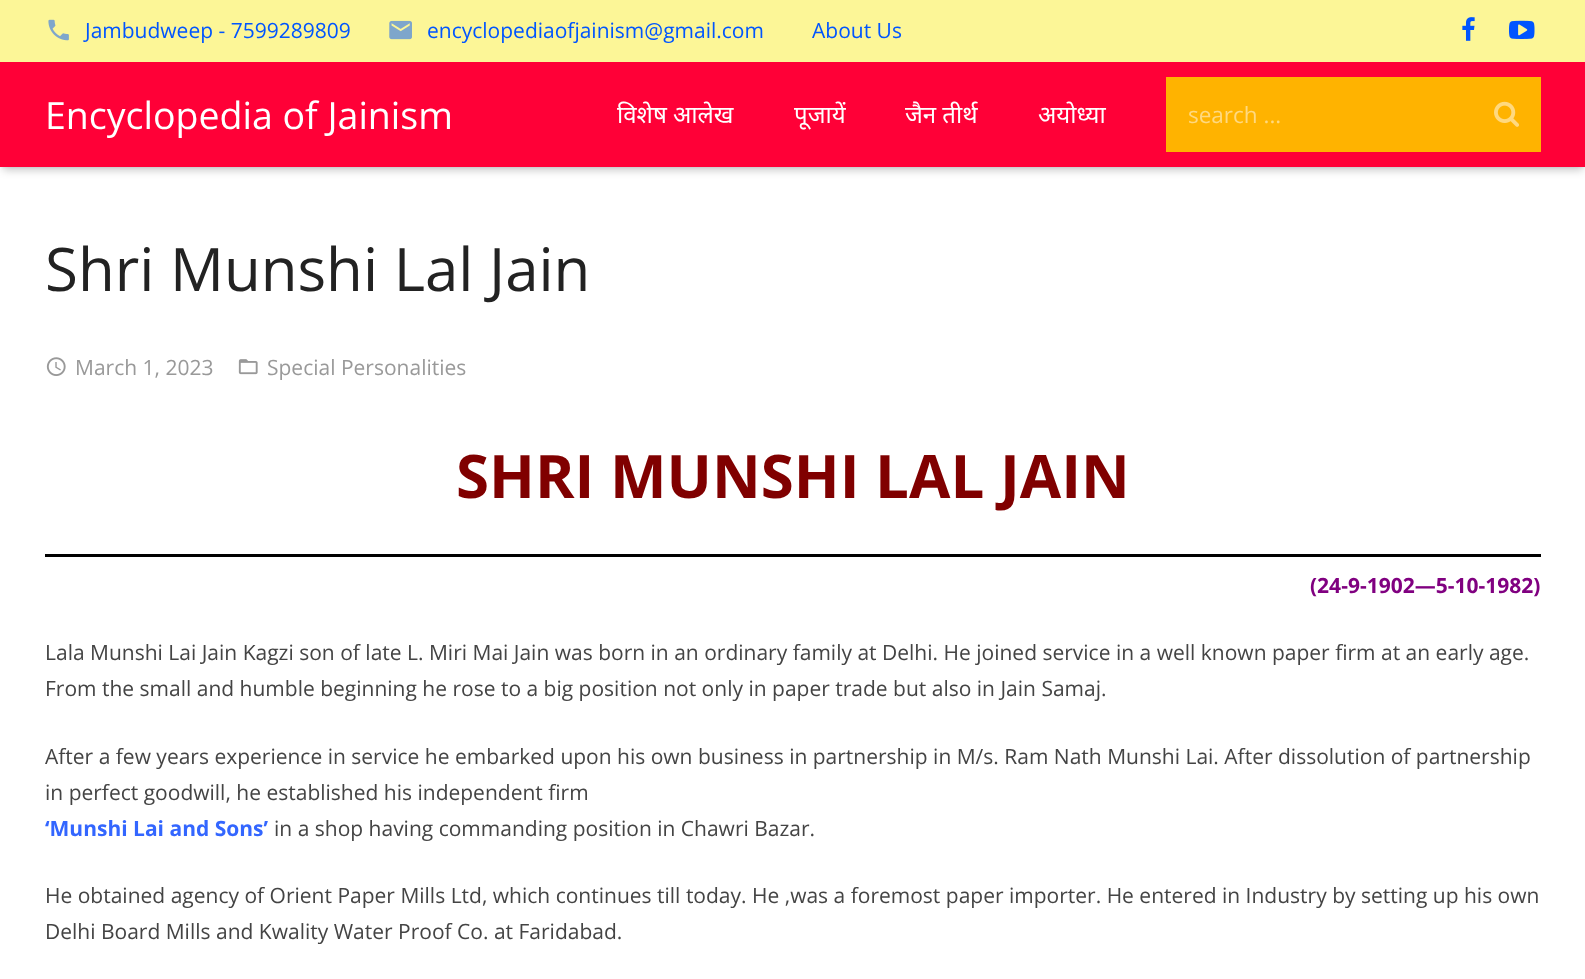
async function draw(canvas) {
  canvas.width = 1585;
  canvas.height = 979;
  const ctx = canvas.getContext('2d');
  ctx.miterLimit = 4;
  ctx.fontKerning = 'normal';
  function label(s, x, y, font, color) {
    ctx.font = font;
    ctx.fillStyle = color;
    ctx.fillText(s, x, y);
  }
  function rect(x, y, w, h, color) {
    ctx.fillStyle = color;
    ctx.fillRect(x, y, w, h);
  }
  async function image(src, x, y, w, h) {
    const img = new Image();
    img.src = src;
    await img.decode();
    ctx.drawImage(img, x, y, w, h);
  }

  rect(0, 0, 1585, 979, '#fff');
  rect(0, 0, 1585, 62, '#fcf697');
  await image('assets/img1.png', 48, 19, 21, 22);
  label('Jambudweep - 7599289809', 85, 38, '21px Open Sans', '#05f');
  await image('assets/img2.png', 389, 20, 23, 20);
  label('encyclopediaofjainism@gmail.com', 427, 38, '21px Open Sans', '#05f');
  label('About Us', 812, 38, '21px Open Sans', '#05f');
  await image('assets/img3.png', 1462, 17, 13, 24);
  await image('assets/img4.png', 1509, 20, 26, 19);
  ctx.fillStyle = '#0000000d';
  ctx.filter = 'blur(1px)';
  ctx.beginPath();
  ctx.rect(2, 66, 1582, 102);
  ctx.fill();
  ctx.filter = 'none';
  ctx.fillStyle = '#00000038';
  ctx.filter = 'blur(4px)';
  ctx.beginPath();
  ctx.rect(3, 71, 1580, 99);
  ctx.fill();
  ctx.filter = 'none';
  rect(0, 62, 1585, 105, '#ff0037');
  label('Encyclopedia of Jainism', 45, 129, '37.5px Open Sans', '#fff');
  label('विशेष आलेख', 617, 123, '24px Noto Sans', '#fff');
  label('पूजायें', 794, 123, '24px Noto Sans', '#fff');
  label('जैन तीर्थ', 905, 123, '24px Noto Sans', '#fff');
  label('अयोध्या', 1038, 123, '24px Noto Sans', '#fff');
  rect(1166, 77, 375, 75, '#ffb300');
  label('search ...', 1188, 123, '22.5px Open Sans', '#ffd980');
  await image('assets/img5.png', 1494, 101, 25, 26);
  label('Shri Munshi Lal Jain', 45, 291, '60px Open Sans', '#222');
  await image('assets/img6.png', 46, 357, 20, 19);
  label('March 1, 2023', 75, 375, '21px Open Sans', '#999');
  await image('assets/img7.png', 238, 359, 20, 16);
  label('Special Personalities', 267, 375, '21px Open Sans', '#999');
  label('SHRI MUNSHI LAL JAIN', 456, 498, 'bold 60px Open Sans', '#800000');
  rect(45, 554, 1496, 3, '#000');
  label('(24-9-1902—5-10-1982)', 1310, 593, 'bold 21px Open Sans', '#800080');
  label('Lala Munshi Lai Jain Kagzi son of late L. Miri Mai Jain was born in an ordinary family at Delhi. He joined service in a well known paper firm at an early age.', 45, 660, '21px Open Sans', '#444');
  label('From the small and humble beginning he rose to a big position not only in paper trade but also in Jain Samaj.', 45, 696, '21px Open Sans', '#444');
  label('After a few years experience in service he embarked upon his own business in partnership in M/s. Ram Nath Munshi Lai. After dissolution of partnership', 45, 764, '21px Open Sans', '#444');
  label('in perfect goodwill, he established his independent firm', 45, 800, '21px Open Sans', '#444');
  label('‘Munshi Lai and Sons’', 45, 836, 'bold 21px Open Sans', '#36f');
  label('in a shop having commanding position in Chawri Bazar.', 274, 836, '21px Open Sans', '#444');
  label('He obtained agency of Orient Paper Mills Ltd, which continues till today. He ,was a foremost paper importer. He entered in Industry by setting up his own', 45, 903, '21px Open Sans', '#444');
  label('Delhi Board Mills and Kwality Water Proof Co. at Faridabad.', 45, 939, '21px Open Sans', '#444');
}

draw(document.querySelector('canvas'));
